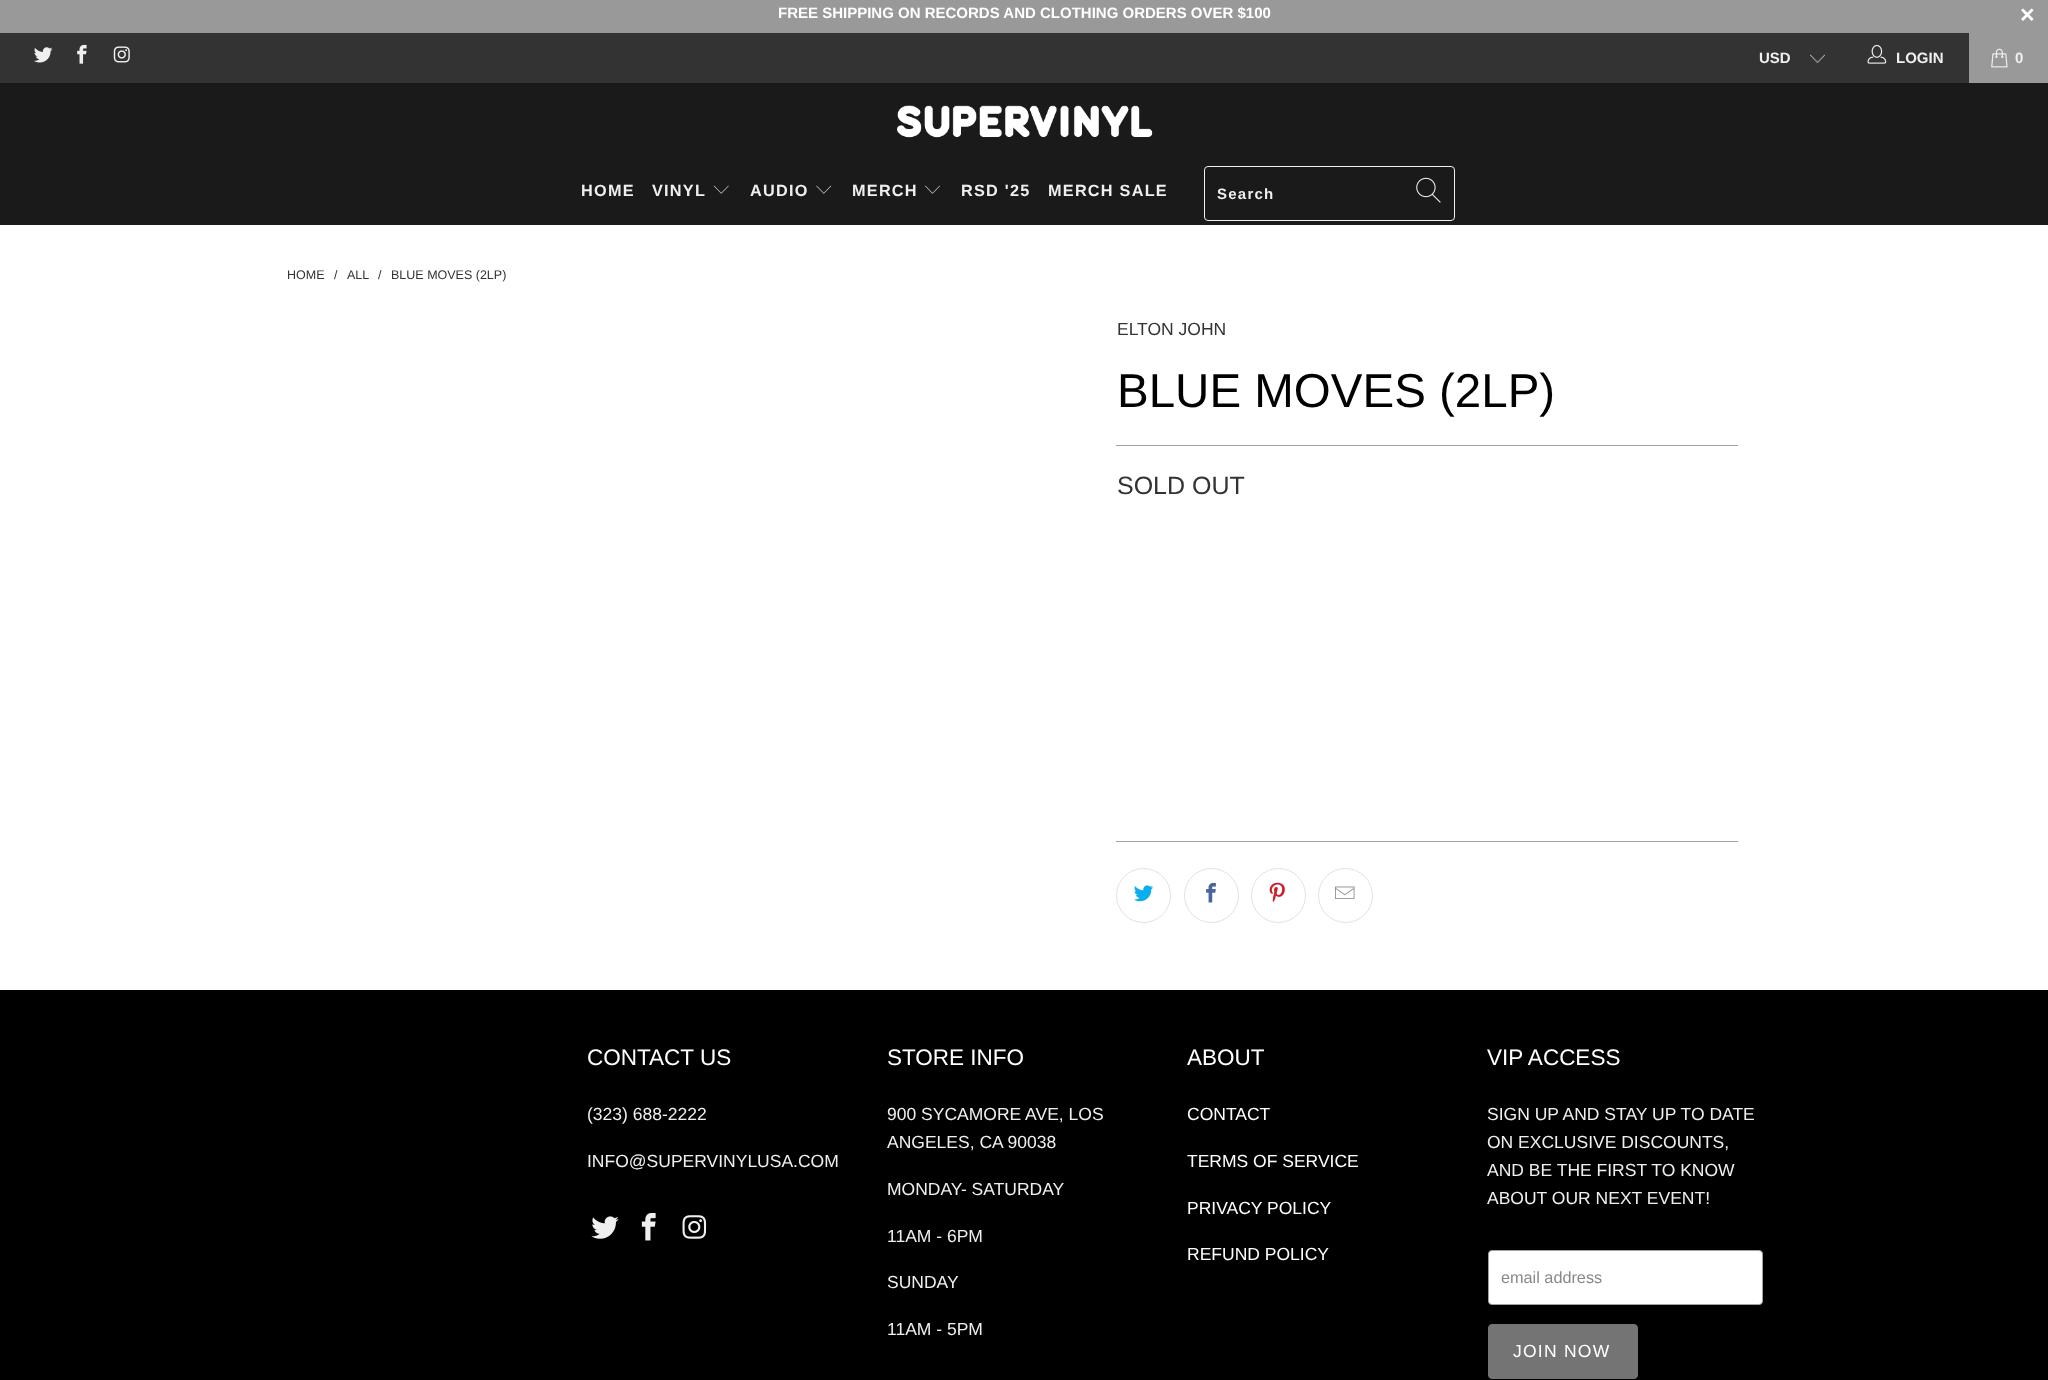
async function draw(canvas) {
  canvas.width = 2048;
  canvas.height = 1380;
  const ctx = canvas.getContext('2d');
  ctx.miterLimit = 4;
  ctx.fontKerning = 'normal';
  function label(s, x, y, font, color) {
    ctx.font = font;
    ctx.fillStyle = color;
    ctx.fillText(s, x, y);
  }
  function rect(x, y, w, h, color) {
    ctx.fillStyle = color;
    ctx.fillRect(x, y, w, h);
  }
  async function image(src, x, y, w, h) {
    const img = new Image();
    img.src = src;
    await img.decode();
    ctx.drawImage(img, x, y, w, h);
  }

  rect(0, 0, 2048, 1380, '#fff');
  rect(0, 0, 2048, 33, '#999');
  label('FREE SHIPPING ON RECORDS AND CLOTHING ORDERS OVER $100', 778, 18, 'bold 15px Liberation Sans', '#fff');
  label('×', 2020, 23, 'bold 25px Liberation Sans', '#fff');
  rect(0, 33, 1969, 50, '#333');
  await image('assets/img1.png', 34, 47, 19, 16);
  await image('assets/img2.png', 77, 44, 10, 20);
  await image('assets/img3.png', 113, 46, 17, 17);
  await image('assets/img4.png', 1810, 54, 15, 10);
  label('USD', 1759, 63, 'bold 15px Liberation Sans', '#efefef');
  await image('assets/img5.png', 1867, 44, 20, 20);
  label('LOGIN', 1896, 63, 'bold 15px Liberation Sans', '#efefef');
  rect(1969, 33, 79, 50, '#999');
  await image('assets/img6.png', 1991, 48, 17, 20);
  label('0', 2015, 63, 'bold 15px Liberation Sans', '#efefef');
  rect(0, 83, 2048, 142, '#1a1a1a');
  await image('assets/img7.png', 897, 105, 256, 33);
  ctx.letterSpacing = '1.25px';
  label('HOME', 581, 196, 'bold 16.25px Liberation Sans', '#efefef');
  label('VINYL', 652, 196, 'bold 16.25px Liberation Sans', '#efefef');
  await image('assets/img8.png', 713, 185, 16, 9);
  label('AUDIO', 750, 196, 'bold 16.25px Liberation Sans', '#efefef');
  await image('assets/img9.png', 816, 185, 16, 9);
  label('MERCH', 852, 196, 'bold 16.25px Liberation Sans', '#efefef');
  await image('assets/img10.png', 925, 185, 15, 9);
  label('RSD \'25', 961, 196, 'bold 16.25px Liberation Sans', '#efefef');
  label('MERCH SALE', 1048, 196, 'bold 16.25px Liberation Sans', '#efefef');
  ctx.beginPath();
  ctx.roundRect(1204.5, 166.5, 250, 54, 3.5);
  ctx.strokeStyle = '#efefef';
  ctx.stroke();
  label('Search', 1217, 199, 'bold 15px Liberation Sans', '#efefef');
  await image('assets/img11.png', 1416, 177, 25, 26);
  ctx.letterSpacing = '0px';
  label('HOME', 287, 279, '12.5px Liberation Sans', '#333');
  label('/', 334, 279, '12.5px Liberation Sans', '#333');
  label('ALL', 347, 279, '12.5px Liberation Sans', '#333');
  label('/', 378, 279, '12.5px Liberation Sans', '#333');
  label('BLUE MOVES (2LP)', 391, 279, '12.5px Liberation Sans', '#333');
  label('ELTON JOHN', 1117, 335, '17.5px Liberation Sans', '#333');
  label('BLUE MOVES (2LP)', 1117, 407, '47.5px Liberation Sans', '#000');
  rect(1116, 445, 622, 1, '#a1a1a1');
  label('SOLD OUT', 1117, 494, '25px Liberation Sans', '#333');
  rect(1116, 841, 622, 1, '#a1a1a1');
  ctx.beginPath();
  ctx.arc(1143.5, 895.5, 27, 0, 2 * Math.PI);
  ctx.strokeStyle = '#e2e2e2';
  ctx.stroke();
  await image('assets/img12.png', 1134, 885, 20, 17);
  ctx.beginPath();
  ctx.arc(1211.5, 895.5, 27, 0, 2 * Math.PI);
  ctx.stroke();
  await image('assets/img13.png', 1206, 883, 10, 20);
  ctx.beginPath();
  ctx.arc(1278.5, 895.5, 27, 0, 2 * Math.PI);
  ctx.stroke();
  await image('assets/img14.png', 1269, 882, 16, 20);
  ctx.beginPath();
  ctx.arc(1345.5, 895.5, 27, 0, 2 * Math.PI);
  ctx.stroke();
  await image('assets/img15.png', 1335, 886, 20, 13);
  rect(0, 990, 2048, 390, '#000');
  label('CONTACT US', 587, 1065, '22.5px Liberation Sans', '#fff');
  label('(323) 688-2222', 587, 1120, '17.5px Liberation Sans', '#efefef');
  label('INFO@SUPERVINYLUSA.COM', 587, 1167, '17.5px Liberation Sans', '#efefef');
  await image('assets/img16.png', 591, 1216, 28, 23);
  await image('assets/img17.png', 641, 1213, 15, 28);
  await image('assets/img18.png', 682, 1215, 25, 24);
  label('STORE INFO', 887, 1065, '22.5px Liberation Sans', '#fff');
  label('900 SYCAMORE AVE, LOS', 887, 1120, '17.5px Liberation Sans', '#efefef');
  label('ANGELES, CA 90038', 887, 1148, '17.5px Liberation Sans', '#efefef');
  label('MONDAY- SATURDAY', 887, 1195, '17.5px Liberation Sans', '#efefef');
  label('11AM - 6PM', 887, 1242, '17.5px Liberation Sans', '#efefef');
  label('SUNDAY', 887, 1288, '17.5px Liberation Sans', '#efefef');
  label('11AM - 5PM', 887, 1335, '17.5px Liberation Sans', '#efefef');
  label('ABOUT', 1187, 1065, '22.5px Liberation Sans', '#fff');
  label('CONTACT', 1187, 1120, '17.5px Liberation Sans', '#fff');
  label('TERMS OF SERVICE', 1187, 1167, '17.5px Liberation Sans', '#fff');
  label('PRIVACY POLICY', 1187, 1214, '17.5px Liberation Sans', '#fff');
  label('REFUND POLICY', 1187, 1260, '17.5px Liberation Sans', '#fff');
  label('VIP ACCESS', 1487, 1065, '22.5px Liberation Sans', '#fff');
  label('SIGN UP AND STAY UP TO DATE', 1487, 1120, '17.5px Liberation Sans', '#efefef');
  label('ON EXCLUSIVE DISCOUNTS,', 1487, 1148, '17.5px Liberation Sans', '#efefef');
  label('AND BE THE FIRST TO KNOW', 1487, 1176, '17.5px Liberation Sans', '#efefef');
  label('ABOUT OUR NEXT EVENT!', 1487, 1204, '17.5px Liberation Sans', '#efefef');
  ctx.fillStyle = '#fff';
  ctx.beginPath();
  ctx.roundRect(1488.5, 1250.5, 274, 54, 3.5);
  ctx.fill();
  ctx.strokeStyle = '#a1a1a1';
  ctx.stroke();
  label('email address', 1501, 1283, '16.25px Liberation Sans', '#888');
  ctx.fillStyle = '#747474';
  ctx.beginPath();
  ctx.roundRect(1488.5, 1324.5, 149, 54, 3.5);
  ctx.fill();
  ctx.strokeStyle = '#747474';
  ctx.stroke();
  ctx.letterSpacing = '1.25px';
  label('JOIN NOW', 1513, 1357, '17.5px Liberation Sans', '#fff');
}

draw(document.querySelector('canvas'));
